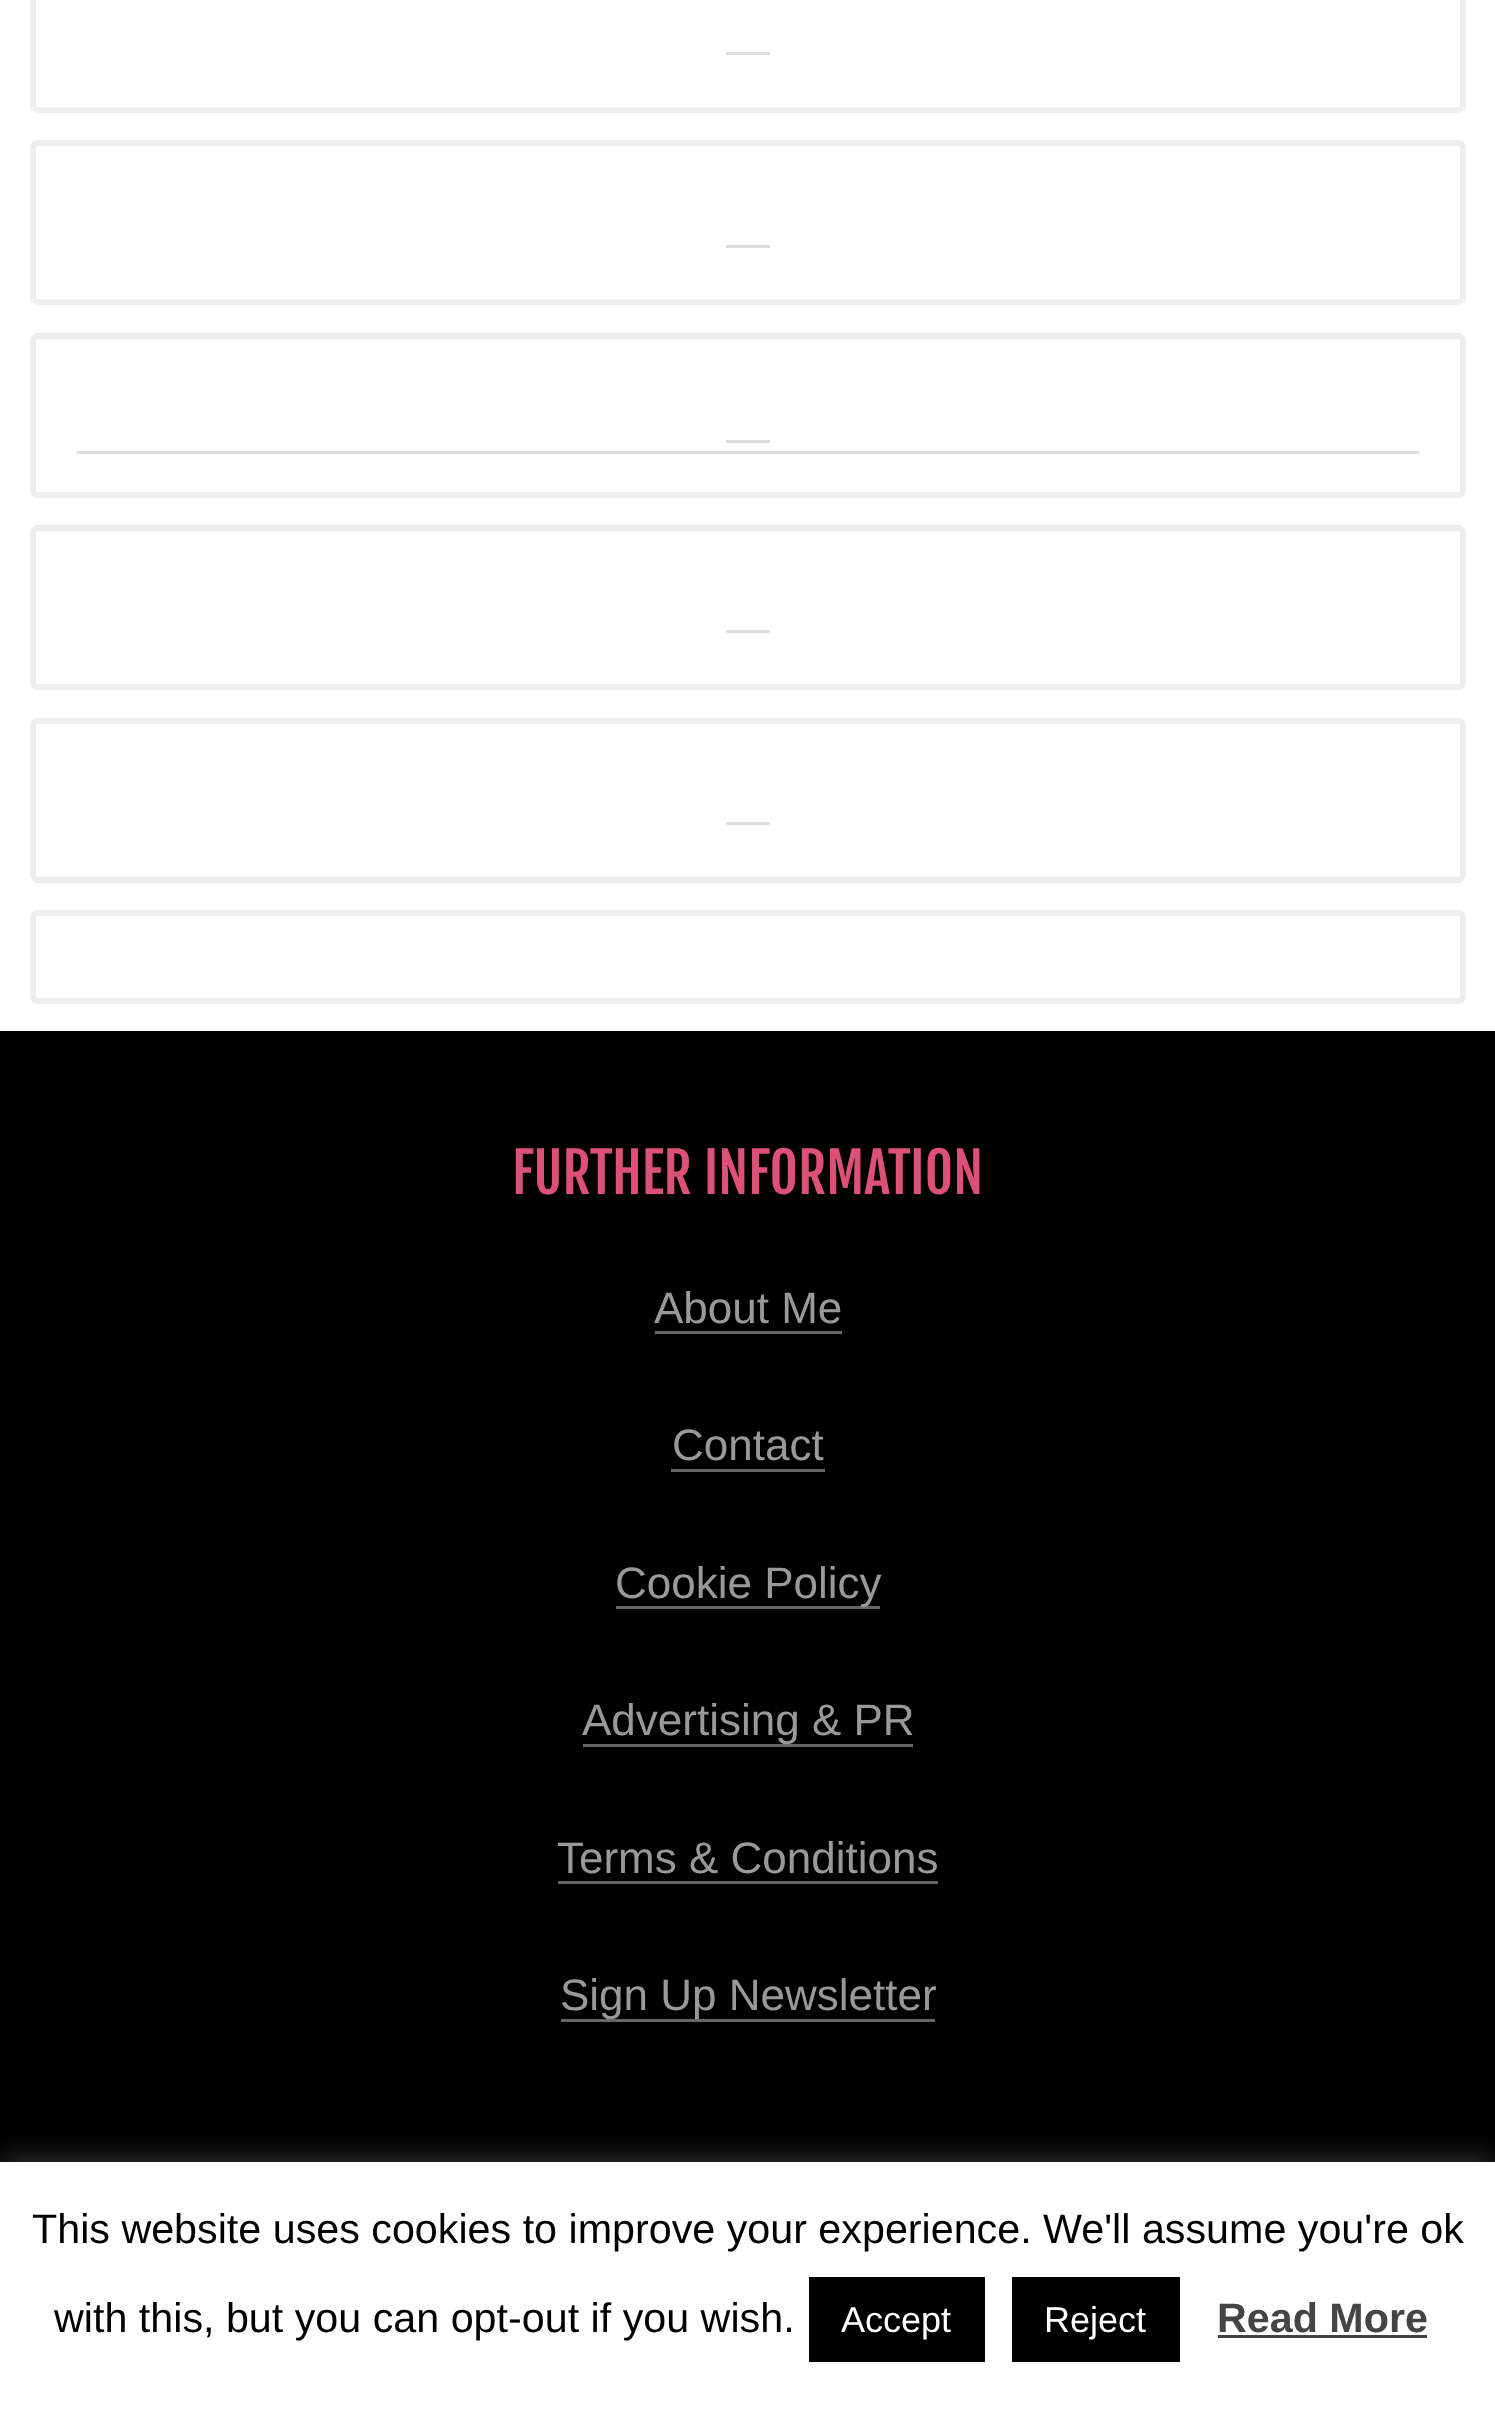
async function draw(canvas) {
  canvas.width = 1495;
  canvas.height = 2409;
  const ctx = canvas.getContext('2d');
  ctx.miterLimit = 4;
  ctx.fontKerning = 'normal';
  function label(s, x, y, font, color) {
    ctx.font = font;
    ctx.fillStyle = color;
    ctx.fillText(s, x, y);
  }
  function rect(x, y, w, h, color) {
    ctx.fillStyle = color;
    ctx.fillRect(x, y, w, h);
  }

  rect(0, 0, 1495, 2409, '#fff');
  ctx.beginPath();
  ctx.roundRect(33, -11, 1430, 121, 5);
  ctx.strokeStyle = '#eee';
  ctx.lineWidth = 6;
  ctx.stroke();
  rect(726, 52, 44, 3, '#ddd');
  ctx.beginPath();
  ctx.roundRect(33, 143, 1430, 159, 5);
  ctx.stroke();
  rect(726, 245, 44, 3, '#ddd');
  ctx.beginPath();
  ctx.roundRect(33, 336, 1430, 159, 5);
  ctx.stroke();
  rect(726, 440, 44, 3, '#ddd');
  rect(77, 451, 1342, 3, '#ddd');
  ctx.beginPath();
  ctx.roundRect(33, 528, 1430, 159, 5);
  ctx.stroke();
  rect(726, 630, 44, 3, '#ddd');
  ctx.beginPath();
  ctx.roundRect(33, 721, 1430, 159, 5);
  ctx.stroke();
  rect(726, 822, 44, 3, '#ddd');
  ctx.beginPath();
  ctx.roundRect(33, 913, 1430, 88, 5);
  ctx.stroke();
  rect(0, 1031, 1495, 1131, '#000');
  label('FURTHER INFORMATION', 512, 1194, '55px Fjalla One', '#dd5177');
  label('About Me', 654, 1323, '44px Liberation Sans', '#999');
  rect(655, 1331, 187, 3, '#666');
  label('Contact', 672, 1460, '44px Liberation Sans', '#999');
  rect(671, 1469, 154, 3, '#666');
  rect(616, 1606, 264, 3, '#666');
  label('Cookie Policy', 615, 1598, '44px Liberation Sans', '#999');
  rect(583, 1744, 330, 3, '#666');
  label('Advertising & PR', 582, 1735, '44px Liberation Sans', '#999');
  label('Terms & Conditions', 557, 1873, '44px Liberation Sans', '#999');
  rect(558, 1881, 380, 3, '#666');
  rect(561, 2019, 374, 3, '#666');
  label('Sign Up Newsletter', 560, 2010, '44px Liberation Sans', '#999');
  ctx.fillStyle = '#acabab4d';
  ctx.filter = 'blur(14px)';
  ctx.beginPath();
  ctx.rect(0, 2159, 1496, 247);
  ctx.fill();
  ctx.filter = 'none';
  rect(0, 2162, 1495, 247, '#fff');
  label('This website uses cookies to improve your experience. We\'ll assume you\'re ok', 32, 2243, '41.25px Liberation Sans', '#000');
  label('with this, but you can opt-out if you wish.', 54, 2332, '41.25px Liberation Sans', '#000');
  rect(809, 2277, 176, 85, '#000');
  label('Accept', 841, 2332, '36px Liberation Sans', '#fff');
  rect(1012, 2277, 168, 85, '#000');
  label('Reject', 1044, 2332, '36px Liberation Sans', '#fff');
  label('Read More', 1217, 2332, 'bold 41.25px Liberation Sans', '#444');
  rect(1218, 2335, 209, 3, '#444');
}

draw(document.querySelector('canvas'));
